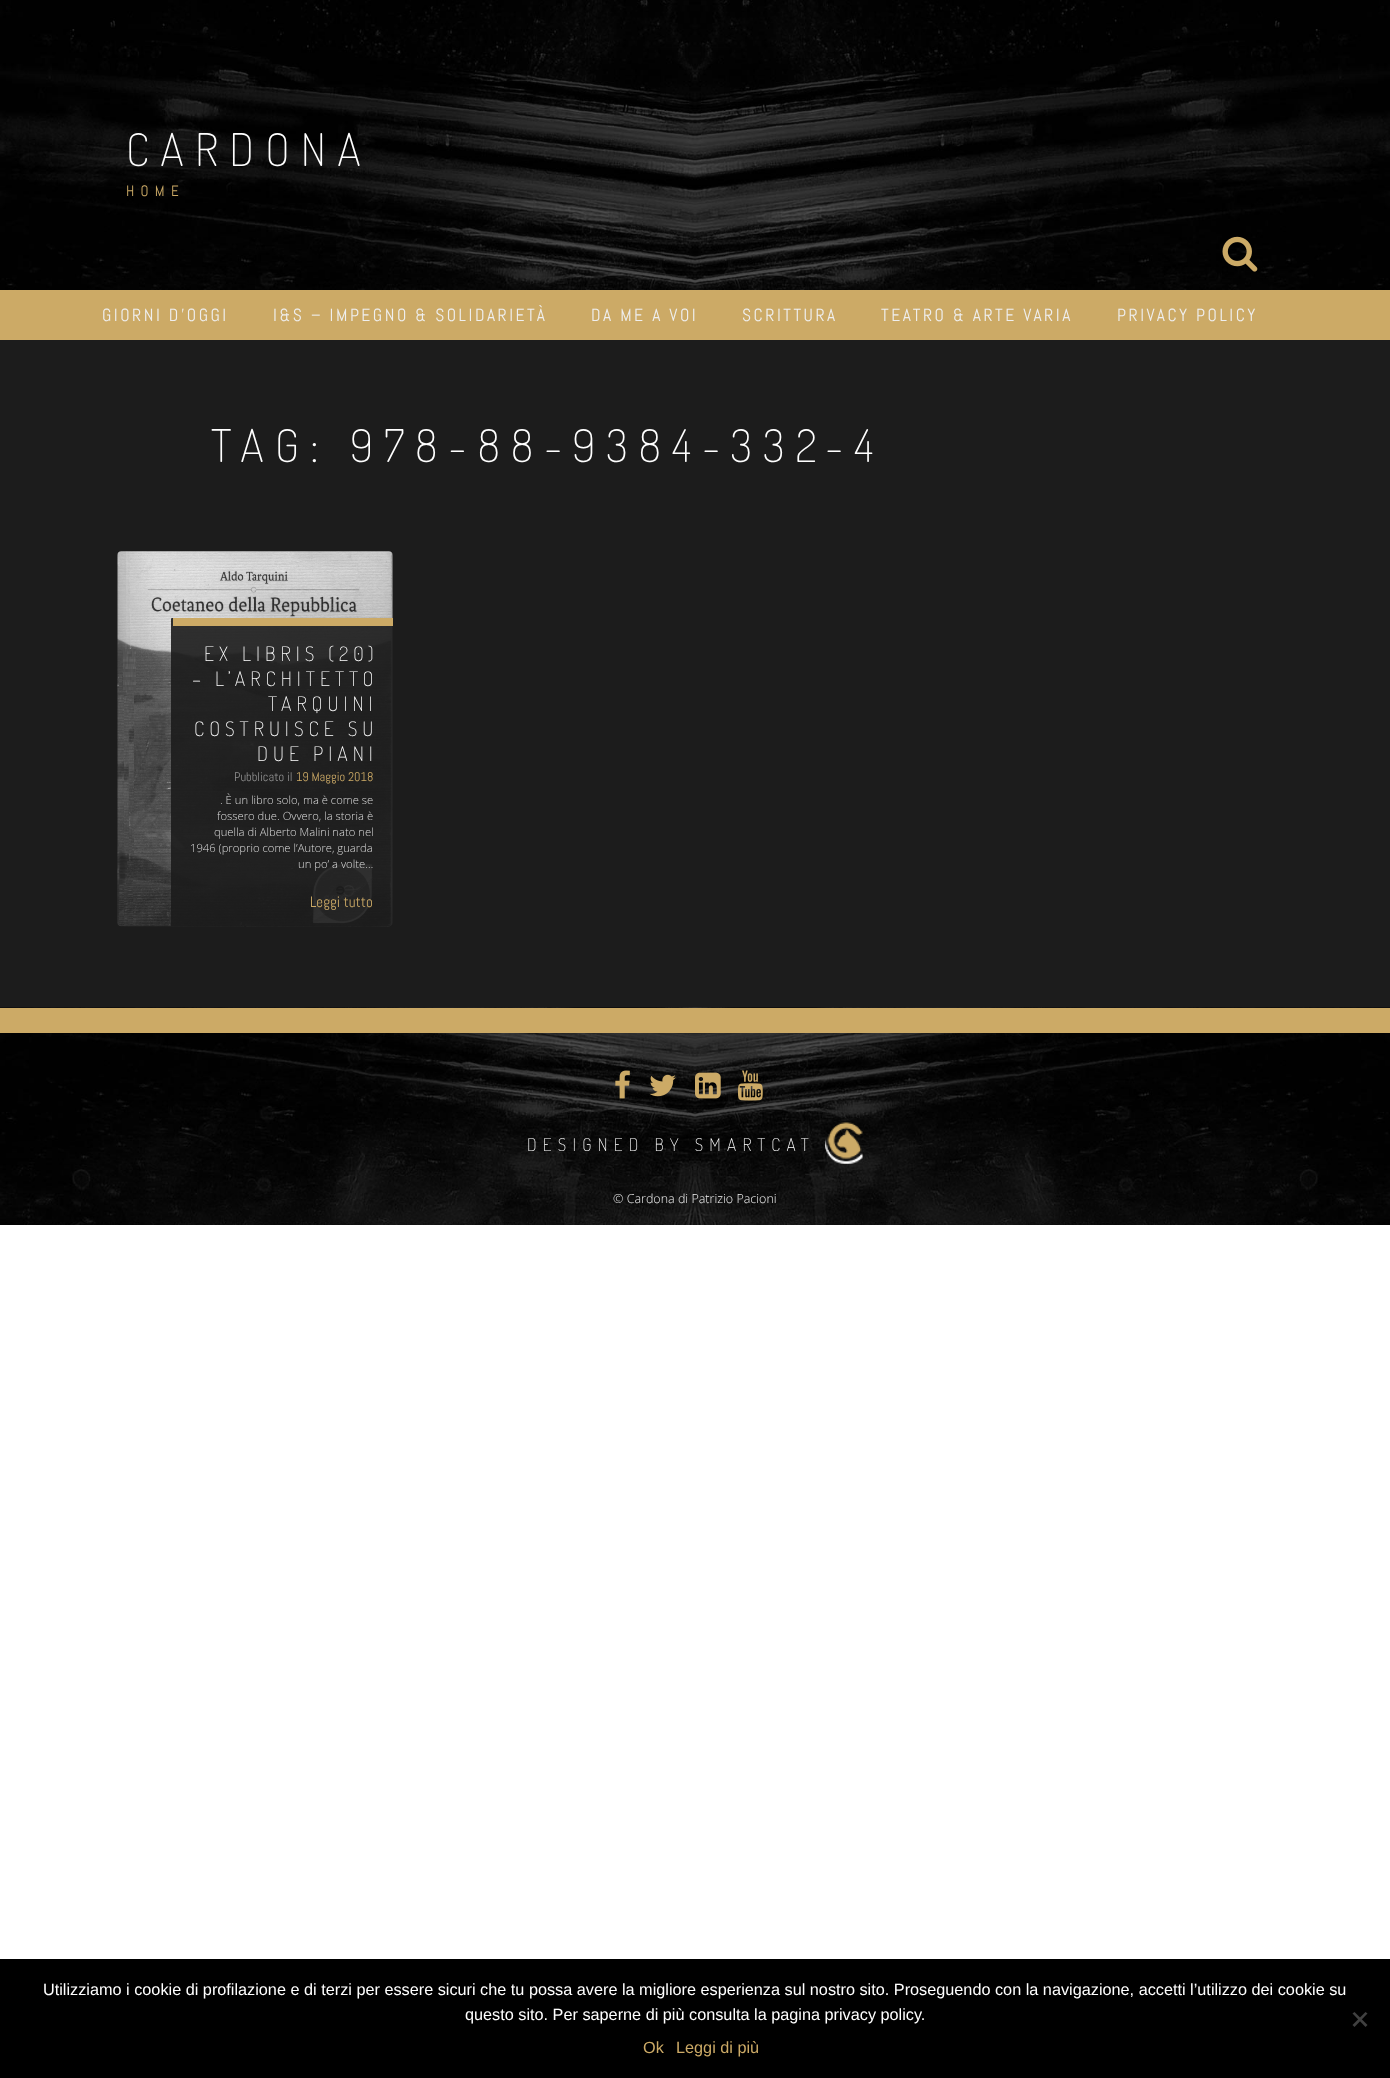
async function draw(canvas) {
  canvas.width = 1390;
  canvas.height = 2078;
  const ctx = canvas.getContext('2d');
  ctx.miterLimit = 4;
  ctx.fontKerning = 'normal';
  function label(s, x, y, font, color) {
    ctx.font = font;
    ctx.fillStyle = color;
    ctx.fillText(s, x, y);
  }
  function rect(x, y, w, h, color) {
    ctx.fillStyle = color;
    ctx.fillRect(x, y, w, h);
  }
  async function image(src, x, y, w, h) {
    const img = new Image();
    img.src = src;
    await img.decode();
    ctx.drawImage(img, x, y, w, h);
  }
  let path;

  rect(0, 0, 1390, 2078, '#fff');
  await image('assets/img1.png', 0, 0, 1390, 290);
  ctx.letterSpacing = '11.25px';
  label('CARDONA', 126, 166, '200 45px Dosis', '#fff');
  ctx.letterSpacing = '6.25px';
  label('HOME', 126, 196, '15px Abel', '#ca6');
  await image('assets/img2.png', 1222, 236, 36, 36);
  rect(0, 290, 1390, 50, '#ca6');
  ctx.letterSpacing = '2.5px';
  label('GIORNI D’OGGI', 102, 321, '17.5px Abel', '#efefef');
  label('I&S – IMPEGNO & SOLIDARIETÀ', 273, 321, '17.5px Abel', '#efefef');
  label('DA ME A VOI', 591, 321, '17.5px Abel', '#efefef');
  label('SCRITTURA', 742, 321, '17.5px Abel', '#efefef');
  label('TEATRO & ARTE VARIA', 881, 321, '17.5px Abel', '#efefef');
  label('PRIVACY POLICY', 1117, 321, '17.5px Abel', '#efefef');
  rect(0, 340, 1390, 668, '#1c1c1c');
  ctx.letterSpacing = '11.25px';
  label('TAG: 978-88-9384-332-4', 211, 462, '200 45px Dosis', '#fff');
  await image('assets/img3.png', 117, 551, 276, 376);
  ctx.fillStyle = '#1c1c1ce6';
  ctx.beginPath();
  ctx.roundRect(171, 618, 222, 308, [1, 0, 0, 0]);
  ctx.fill();
  rect(173, 618, 220, 8, '#ca6');
  ctx.letterSpacing = '5px';
  label('EX LIBRIS (20)', 204, 661, '200 20px Dosis', '#fff');
  label('– L’ARCHITETTO', 192, 686, '200 20px Dosis', '#fff');
  label('TARQUINI', 268, 711, '200 20px Dosis', '#fff');
  label('COSTRUISCE SU', 194, 736, '200 20px Dosis', '#fff');
  label('DUE PIANI', 257, 761, '200 20px Dosis', '#fff');
  ctx.letterSpacing = '0px';
  label('Pubblicato il', 234, 781, '12.5px Abel', '#909090');
  label('19 Maggio 2018', 296, 781, '12.5px Abel', '#ca6');
  label('. È un libro solo, ma è come se', 220, 804, '300 11.25px Open Sans', '#d9d9d9');
  label('fossero due. Ovvero, la storia è', 217, 820, '300 11.25px Open Sans', '#d9d9d9');
  label('quella di Alberto Malini nato nel', 214, 836, '300 11.25px Open Sans', '#d9d9d9');
  label('1946 (proprio come l’Autore, guarda', 190, 852, '300 11.25px Open Sans', '#d9d9d9');
  label('un po’ a volte…', 298, 868, '300 11.25px Open Sans', '#d9d9d9');
  label('Leggi tutto', 310, 907, '15px Abel', '#ca6');
  await image('assets/img4.png', 0, 1007, 1390, 218);
  rect(0, 1008, 1390, 25, '#ca6');
  await image('assets/img5.png', 615, 1070, 15, 29);
  await image('assets/img6.png', 649, 1074, 27, 23);
  await image('assets/img7.png', 695, 1072, 26, 27);
  await image('assets/img8.png', 737, 1070, 26, 31);
  ctx.letterSpacing = '6.25px';
  label('DESIGNED BY SMARTCAT', 527, 1151, '200 17.5px Dosis', '#fff');
  await image('assets/img9.png', 825, 1122, 38, 42);
  ctx.letterSpacing = '0px';
  label('© Cardona di Patrizio Pacioni', 613, 1203, '300 12.5px Open Sans', '#efefef');
  rect(0, 1959, 1390, 119, '#000');
  label('Utilizziamo i cookie di profilazione e di terzi per essere sicuri che tu possa avere la migliore esperienza sul nostro sito. Proseguendo con la navigazione, accetti l’utilizzo dei cookie su', 43, 1995, '16.25px Liberation Sans', '#fff');
  label('questo sito. Per saperne di più consulta la pagina privacy policy.', 465, 2020, '16.25px Liberation Sans', '#fff');
  ctx.fillStyle = '#404040';
  path = new Path2D('M1365.5 2012L1367.5 2013.5L1354.5 2027L1352.5 2025Z');
  ctx.fill(path);
  path = new Path2D('M1352.5 2013.5L1354.5 2012L1367.5 2025L1365.5 2027Z');
  ctx.fill(path);
  label('Ok', 643, 2053, '16.25px Liberation Sans', '#ca6');
  label('Leggi di più', 676, 2053, '16.25px Liberation Sans', '#ca6');
}

draw(document.querySelector('canvas'));
